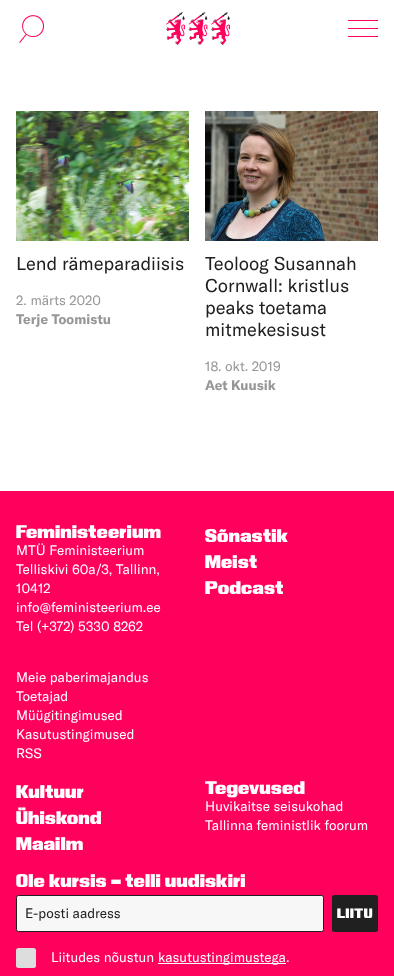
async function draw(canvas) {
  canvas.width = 394;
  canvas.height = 976;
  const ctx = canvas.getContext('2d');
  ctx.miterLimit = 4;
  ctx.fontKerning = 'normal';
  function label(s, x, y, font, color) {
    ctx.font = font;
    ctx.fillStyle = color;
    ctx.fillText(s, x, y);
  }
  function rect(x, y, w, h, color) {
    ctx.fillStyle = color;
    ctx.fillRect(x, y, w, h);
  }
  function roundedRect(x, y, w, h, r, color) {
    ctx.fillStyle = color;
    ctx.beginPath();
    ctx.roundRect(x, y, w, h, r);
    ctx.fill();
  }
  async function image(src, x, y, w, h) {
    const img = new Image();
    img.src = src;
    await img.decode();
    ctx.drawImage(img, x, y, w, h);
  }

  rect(0, 0, 394, 976, '#fff');
  await image('assets/img1.png', 19, 15, 25, 28);
  await image('assets/img2.png', 166, 12, 64, 33);
  rect(348, 28, 30, 1, '#ff005c');
  rect(348, 20, 30, 1, '#ff005c');
  rect(348, 36, 30, 1, '#ff005c');
  await image('assets/img3.png', 16, 111, 173, 130);
  label('Lend rämeparadiisis', 16, 270, '18.4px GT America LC', '#202020');
  label('2. märts 2020', 16, 305, '13.6px GT America LC', '#979797');
  label('Terje Toomistu', 16, 324, 'bold 13.6px GT America LC', '#979797');
  await image('assets/img4.png', 205, 111, 173, 130);
  label('Teoloog Susannah', 205, 270, '18.4px GT America LC', '#202020');
  label('Cornwall: kristlus', 205, 292, '18.4px GT America LC', '#202020');
  label('peaks toetama', 205, 314, '18.4px GT America LC', '#202020');
  label('mitmekesisust', 205, 336, '18.4px GT America LC', '#202020');
  label('18. okt. 2019', 205, 371, '13.6px GT America LC', '#979797');
  label('Aet Kuusik', 205, 390, 'bold 13.6px GT America LC', '#979797');
  rect(0, 491, 394, 485, '#ff005c');
  ctx.letterSpacing = '0.6px';
  label('Feministeerium', 16, 538, '900 18.4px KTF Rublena', '#fff');
  ctx.letterSpacing = '0px';
  label('MTÜ Feministeerium', 16, 555, '13.6px GT America LC', '#fff');
  label('Telliskivi 60a/3, Tallinn,', 16, 574, '13.6px GT America LC', '#fff');
  label('10412', 16, 593, '13.6px GT America LC', '#fff');
  label('info@feministeerium.ee', 16, 612, '13.6px GT America LC', '#fff');
  label('Tel (+372) 5330 8262', 16, 631, '13.6px GT America LC', '#fff');
  label('Meie paberimajandus', 16, 682, '13.6px GT America LC', '#fff');
  label('Toetajad', 16, 701, '13.6px GT America LC', '#fff');
  label('Müügitingimused', 16, 720, '13.6px GT America LC', '#fff');
  label('Kasutustingimused', 16, 739, '13.6px GT America LC', '#fff');
  label('RSS', 16, 758, '13.6px GT America LC', '#fff');
  ctx.letterSpacing = '0.6px';
  label('Sõnastik', 205, 542, '900 18.4px KTF Rublena', '#fff');
  label('Meist', 205, 568, '900 18.4px KTF Rublena', '#fff');
  label('Podcast', 205, 594, '900 18.4px KTF Rublena', '#fff');
  label('Kultuur', 16, 798, '900 18.4px KTF Rublena', '#fff');
  label('Ühiskond', 16, 824, '900 18.4px KTF Rublena', '#fff');
  label('Maailm', 16, 850, '900 18.4px KTF Rublena', '#fff');
  label('Tegevused', 205, 794, '900 18.4px KTF Rublena', '#fff');
  ctx.letterSpacing = '0px';
  label('Huvikaitse seisukohad', 205, 811, '13.6px GT America LC', '#fff');
  label('Tallinna feministlik foorum', 205, 830, '13.6px GT America LC', '#fff');
  ctx.letterSpacing = '0.6px';
  label('Ole kursis – telli uudiskiri', 16, 887, '900 18.4px KTF Rublena', '#fff');
  ctx.fillStyle = '#f7f7f7';
  ctx.beginPath();
  ctx.roundRect(16.5, 895.5, 307, 36, 2);
  ctx.fill();
  ctx.strokeStyle = '#202020';
  ctx.stroke();
  ctx.letterSpacing = '0px';
  label('E-posti aadress', 25, 918, '13.6px GT America LC', '#202020');
  roundedRect(332, 895, 46, 37, 2.5, '#202020');
  ctx.letterSpacing = '0.6px';
  label('LIITU', 337, 918, '900 13.6px KTF Rublena', '#fff');
  roundedRect(16, 948, 20, 20, 2.5, '#ddd');
  ctx.letterSpacing = '0px';
  label('Liitudes nõustun', 51, 962, '13.6px GT America LC', '#fff');
  rect(158, 963, 128, 1, '#fff');
  label('kasutustingimustega.', 158, 962, '13.6px GT America LC', '#fff');
}

draw(document.querySelector('canvas'));
